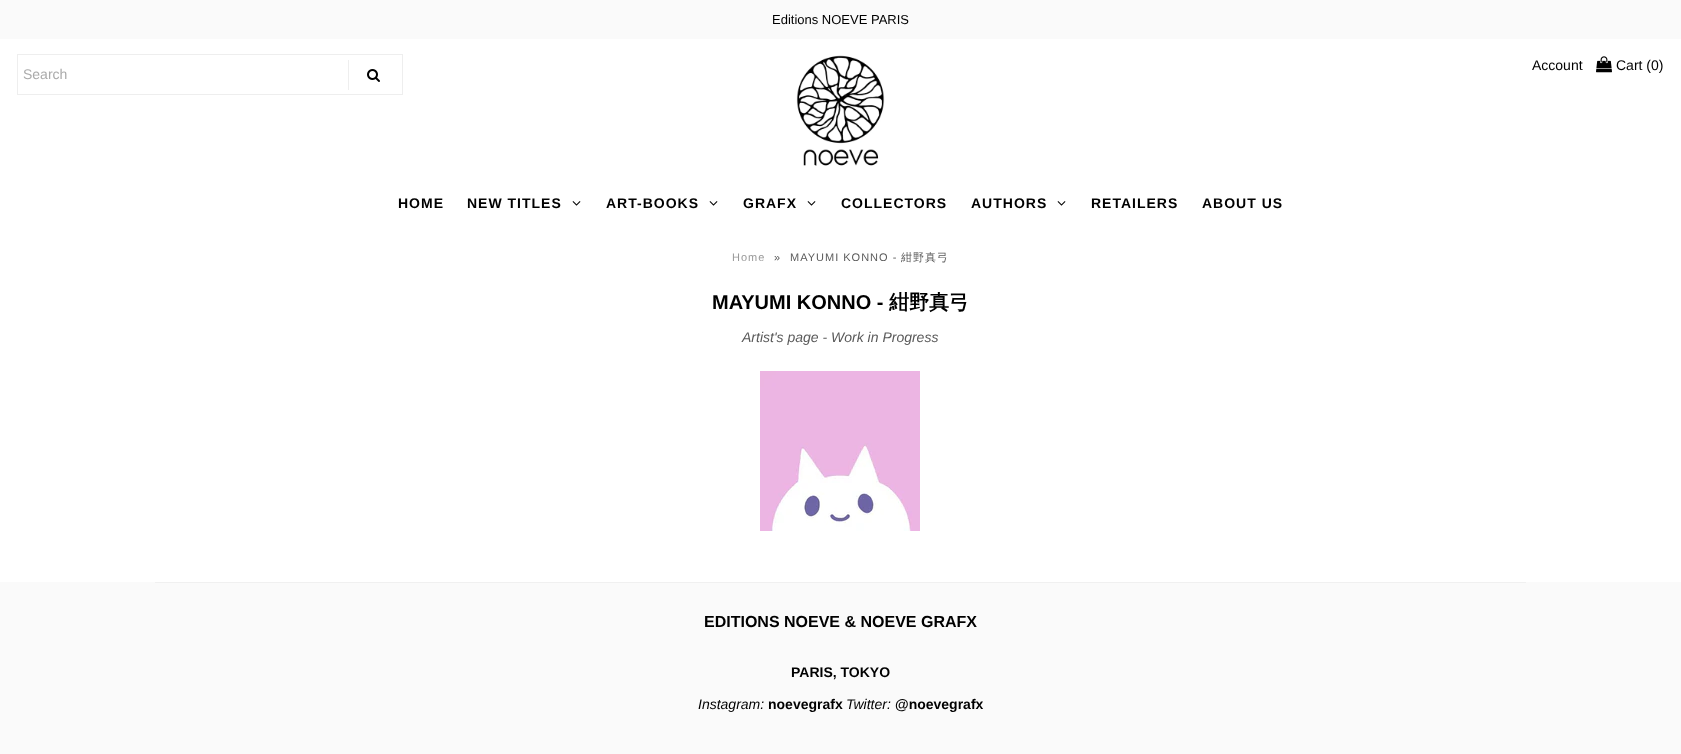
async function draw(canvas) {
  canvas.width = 1681;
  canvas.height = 754;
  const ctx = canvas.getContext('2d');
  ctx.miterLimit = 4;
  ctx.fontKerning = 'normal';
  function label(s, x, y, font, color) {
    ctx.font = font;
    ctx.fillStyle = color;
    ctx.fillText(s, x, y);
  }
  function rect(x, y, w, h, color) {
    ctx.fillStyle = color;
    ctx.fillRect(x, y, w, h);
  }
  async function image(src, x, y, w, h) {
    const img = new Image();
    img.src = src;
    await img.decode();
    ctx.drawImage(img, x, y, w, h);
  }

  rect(0, 0, 1681, 754, '#fff');
  rect(0, 0, 1681, 39, '#fafafa');
  label('Editions NOEVE PARIS', 772, 24, '13px Liberation Sans', '#000');
  ctx.strokeStyle = '#eee';
  ctx.strokeRect(17.5, 54.5, 385, 40);
  label('Search', 23, 79, '14px Liberation Sans', '#aaa');
  rect(348, 60, 1, 30, '#eee');
  await image('assets/img1.png', 367, 69, 13, 13);
  await image('assets/img2.png', 796, 55, 89, 111);
  label('Account', 1532, 70, '14px Liberation Sans', '#000');
  await image('assets/img3.png', 1596, 56, 16, 17);
  label('Cart (0)', 1616, 70, '14px Liberation Sans', '#000');
  ctx.letterSpacing = '1px';
  label('HOME', 398, 208, 'bold 14px Liberation Sans', '#000');
  label('NEW TITLES', 467, 208, 'bold 14px Liberation Sans', '#000');
  await image('assets/img4.png', 572, 201, 9, 5);
  label('ART-BOOKS', 606, 208, 'bold 14px Liberation Sans', '#000');
  await image('assets/img4.png', 709, 201, 9, 5);
  label('GRAFX', 743, 208, 'bold 14px Liberation Sans', '#000');
  await image('assets/img4.png', 807, 201, 9, 5);
  label('COLLECTORS', 841, 208, 'bold 14px Liberation Sans', '#000');
  label('AUTHORS', 971, 208, 'bold 14px Liberation Sans', '#000');
  await image('assets/img4.png', 1057, 201, 9, 5);
  label('RETAILERS', 1091, 208, 'bold 14px Liberation Sans', '#000');
  label('ABOUT US', 1202, 208, 'bold 14px Liberation Sans', '#000');
  label('Home', 732, 261, '11px Liberation Sans', '#999');
  label('»', 774, 261, '11px Liberation Sans', '#5a5a5a');
  label('MAYUMI KONNO -', 790, 261, '11px Liberation Sans', '#5a5a5a');
  label('紺野真弓', 901, 261, '500 11px WenQuanYi Zen Hei', '#5a5a5a');
  ctx.letterSpacing = '0px';
  label('MAYUMI KONNO -', 712, 309, 'bold 20px Liberation Sans', '#000');
  label('紺野真弓', 889, 309, 'bold 20px WenQuanYi Zen Hei', '#000');
  label('Artist\'s page - Work in Progress', 742, 342, 'italic 14px Liberation Sans', '#5a5a5a');
  await image('assets/img5.png', 760, 371, 160, 160);
  rect(0, 582, 1681, 172, '#fafafa');
  rect(155, 582, 1371, 1, '#f0f0f0');
  label('EDITIONS NOEVE & NOEVE GRAFX', 704, 627, 'bold 16px Liberation Sans', '#000');
  label('PARIS, TOKYO', 791, 677, 'bold 14px Liberation Sans', '#000');
  label('Instagram:', 698, 709, 'italic 14px Liberation Sans', '#000');
  label('noevegrafx', 768, 709, 'bold 14px Liberation Sans', '#000');
  label('Twitter:', 846, 709, 'italic 14px Liberation Sans', '#000');
  label('@noevegrafx', 895, 709, 'bold 14px Liberation Sans', '#000');
}

draw(document.querySelector('canvas'));
